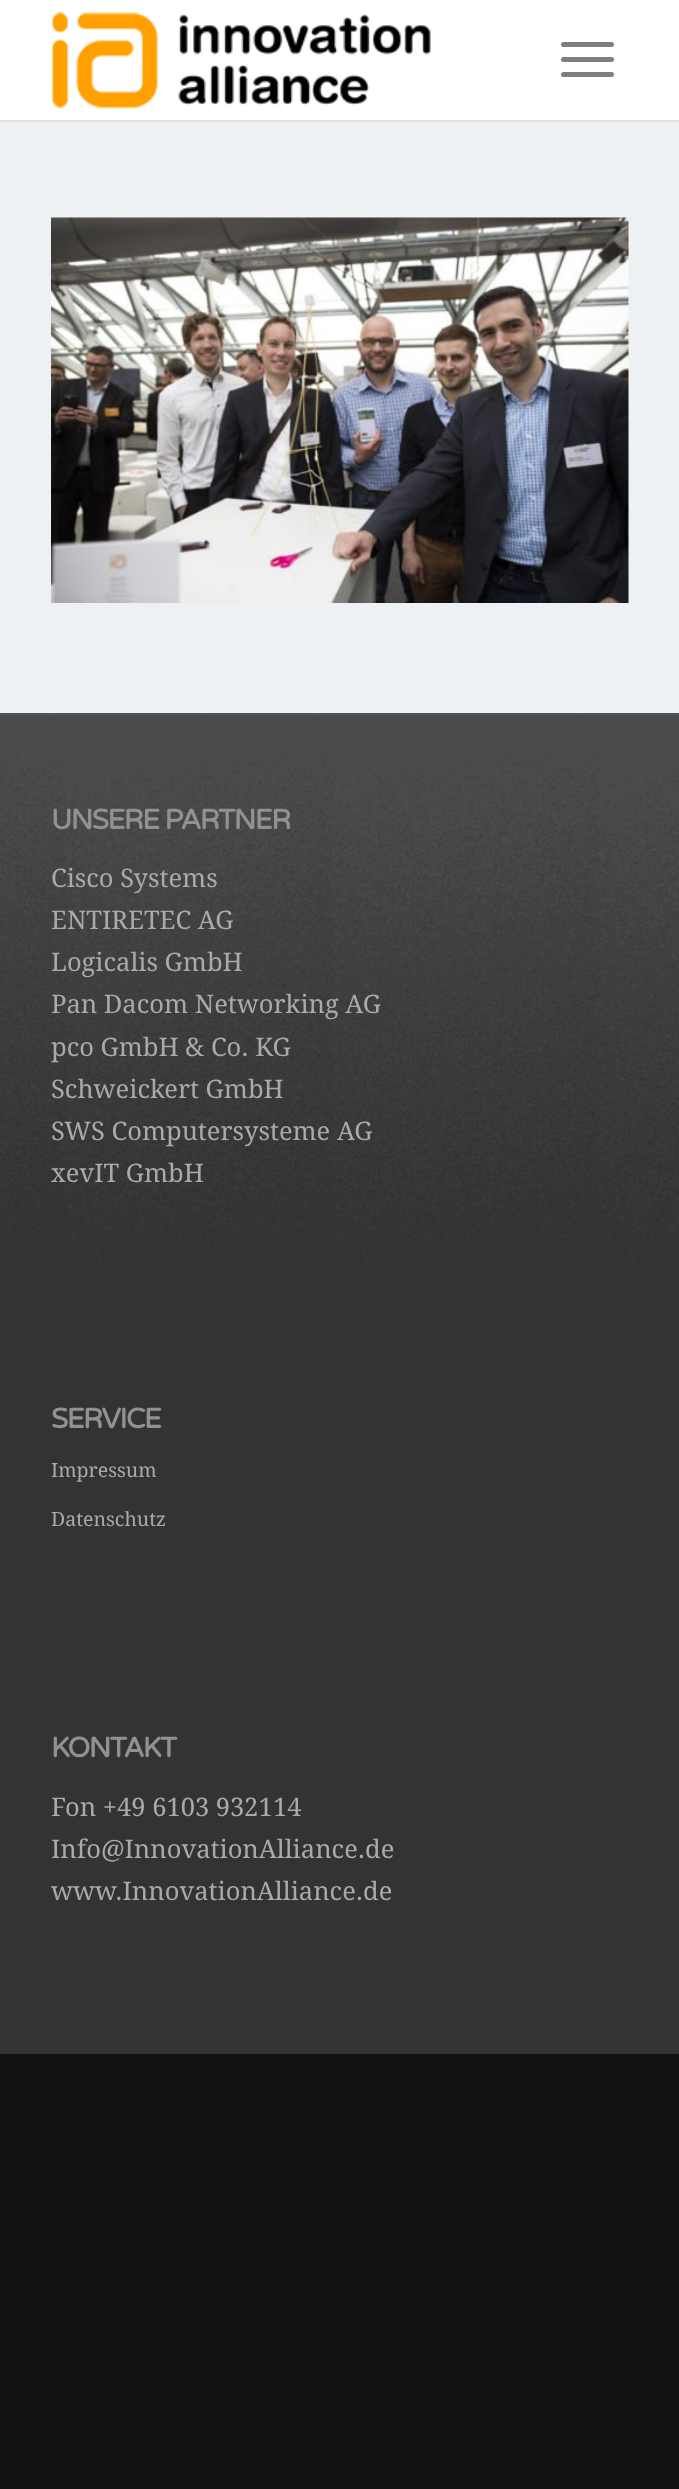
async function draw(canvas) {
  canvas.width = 679;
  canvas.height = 2489;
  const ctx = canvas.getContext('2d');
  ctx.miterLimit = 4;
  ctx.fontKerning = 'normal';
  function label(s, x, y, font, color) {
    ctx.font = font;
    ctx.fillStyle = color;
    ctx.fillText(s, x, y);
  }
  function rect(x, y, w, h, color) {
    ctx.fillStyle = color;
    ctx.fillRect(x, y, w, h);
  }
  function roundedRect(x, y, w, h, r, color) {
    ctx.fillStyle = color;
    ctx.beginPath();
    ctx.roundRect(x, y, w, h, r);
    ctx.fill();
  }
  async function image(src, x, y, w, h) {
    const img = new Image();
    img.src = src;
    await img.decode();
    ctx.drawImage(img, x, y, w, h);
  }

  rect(0, 0, 679, 2489, '#111');
  rect(0, 0, 679, 120, '#fff');
  rect(0, 120, 679, 2, '#e1e1e1');
  await image('assets/img1.png', 52, 11, 379, 98);
  roundedRect(561, 57, 53, 5, 2.5, '#808080');
  roundedRect(561, 42, 53, 5, 2.5, '#808080');
  roundedRect(561, 72, 53, 5, 2.5, '#808080');
  rect(0, 122, 679, 591, '#eef1f3');
  await image('assets/img2.png', 51, 217, 578, 386);
  rect(0, 715, 679, 1339, '#333');
  await image('assets/img3.png', 0, 715, 679, 563);
  rect(0, 713, 679, 2, '#555');
  ctx.letterSpacing = '-1.5px';
  label('UNSERE PARTNER', 51, 829, 'bold 28px Varela Round', '#919191');
  ctx.letterSpacing = '0px';
  label('Cisco Systems', 51, 887, '25.5px Droid Serif', '#aaa');
  label('ENTIRETEC AG', 51, 929, '25.5px Droid Serif', '#aaa');
  label('Logicalis GmbH', 51, 971, '25.5px Droid Serif', '#aaa');
  label('Pan Dacom Networking AG', 51, 1013, '25.5px Droid Serif', '#aaa');
  label('pco GmbH & Co. KG', 51, 1056, '25.5px Droid Serif', '#aaa');
  label('Schweickert GmbH', 51, 1098, '25.5px Droid Serif', '#aaa');
  label('SWS Computersysteme AG', 51, 1140, '25.5px Droid Serif', '#aaa');
  label('xevIT GmbH', 51, 1182, '25.5px Droid Serif', '#aaa');
  ctx.letterSpacing = '-1.5px';
  label('SERVICE', 51, 1428, 'bold 28px Varela Round', '#919191');
  ctx.letterSpacing = '0px';
  label('Impressum', 51, 1477, '19.5px Droid Serif', '#aaa');
  label('Datenschutz', 51, 1526, '19.5px Droid Serif', '#aaa');
  ctx.letterSpacing = '-1.5px';
  label('KONTAKT', 51, 1757, 'bold 28px Varela Round', '#919191');
  ctx.letterSpacing = '0px';
  label('Fon +49 6103 932114', 51, 1816, '25.5px Droid Serif', '#aaa');
  label('Info@InnovationAlliance.de', 51, 1858, '25.5px Droid Serif', '#aaa');
  label('www.InnovationAlliance.de', 51, 1900, '25.5px Droid Serif', '#aaa');
}

draw(document.querySelector('canvas'));
